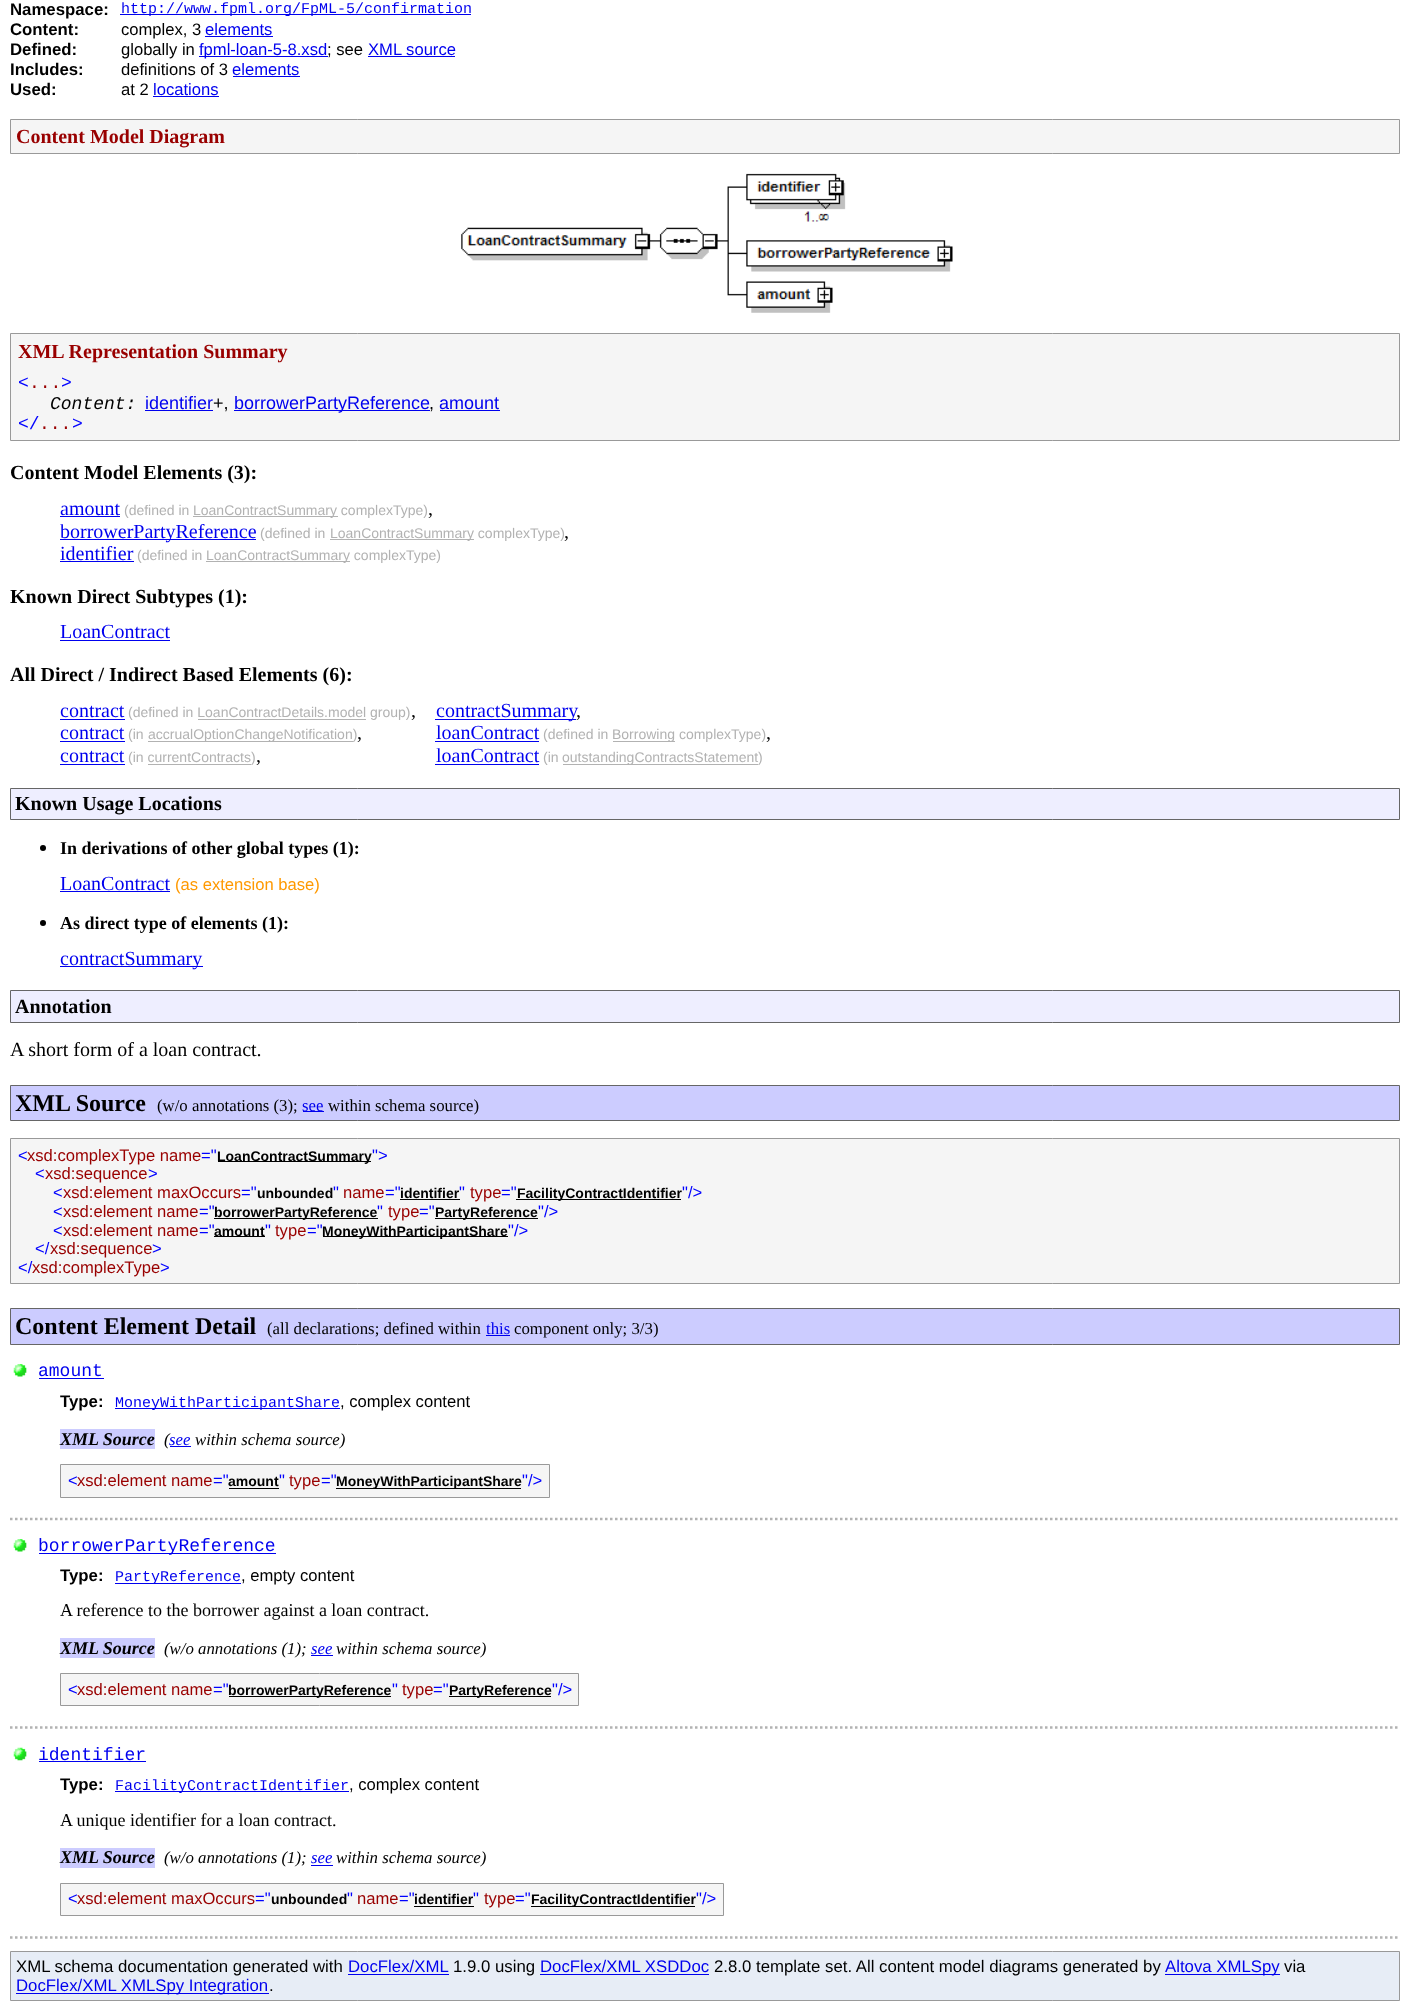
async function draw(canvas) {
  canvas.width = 1409;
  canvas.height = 2010;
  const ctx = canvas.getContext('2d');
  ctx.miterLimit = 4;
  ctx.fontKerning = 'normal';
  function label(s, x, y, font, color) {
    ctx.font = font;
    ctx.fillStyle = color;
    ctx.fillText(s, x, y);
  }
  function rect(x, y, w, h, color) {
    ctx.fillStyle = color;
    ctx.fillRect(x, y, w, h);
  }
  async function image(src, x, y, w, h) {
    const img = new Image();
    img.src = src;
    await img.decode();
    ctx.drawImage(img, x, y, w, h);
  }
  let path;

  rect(0, 0, 1409, 2010, '#fff');
  label('Namespace:', 10, 15, 'bold 16.8px Liberation Sans', '#000');
  rect(120, 14, 351, 1, '#00e');
  label('http://www.fpml.org/FpML-5/confirmation', 121, 13, '15px Liberation Mono', '#00e');
  label('Content:', 10, 35, 'bold 16.8px Liberation Sans', '#000');
  label('complex, 3', 121, 35, '16.6px Liberation Sans', '#000');
  label('elements', 205, 35, '16.6px Liberation Sans', '#00e');
  rect(205, 36, 68, 1, '#00e');
  label('Defined:', 10, 55, 'bold 16.8px Liberation Sans', '#000');
  label('globally in', 121, 55, '16.6px Liberation Sans', '#000');
  rect(199, 56, 129, 1, '#00e');
  label('fpml-loan-5-8.xsd', 199, 55, '16.6px Liberation Sans', '#00e');
  label('; see', 327, 55, '16.6px Liberation Sans', '#000');
  rect(368, 56, 87, 1, '#00e');
  label('XML source', 368, 55, '16.6px Liberation Sans', '#00e');
  label('Includes:', 10, 75, 'bold 16.8px Liberation Sans', '#000');
  label('definitions of 3', 121, 75, '16.6px Liberation Sans', '#000');
  label('elements', 232, 75, '16.6px Liberation Sans', '#00e');
  rect(233, 76, 67, 1, '#00e');
  label('Used:', 10, 95, 'bold 16.8px Liberation Sans', '#000');
  label('at 2', 121, 95, '16.6px Liberation Sans', '#000');
  label('locations', 153, 95, '16.6px Liberation Sans', '#00e');
  rect(153, 96, 66, 1, '#00e');
  ctx.fillStyle = '#f5f5f5';
  ctx.beginPath();
  ctx.rect(10.5, 119.5, 1389, 34);
  ctx.fill();
  ctx.strokeStyle = '#999';
  ctx.stroke();
  label('Content Model Diagram', 16, 143, 'bold 20px Liberation Serif', '#900');
  await image('assets/img1.png', 461, 173, 492, 140);
  ctx.fillStyle = '#f5f5f5';
  ctx.beginPath();
  ctx.rect(10.5, 333.5, 1389, 107);
  ctx.fill();
  ctx.stroke();
  label('XML Representation Summary', 18, 358, 'bold 20px Liberation Serif', '#900');
  label('<', 18, 388, '18px Liberation Mono', '#00f');
  label('...', 29, 388, '18px Liberation Mono', '#900');
  label('>', 61, 388, '18px Liberation Mono', '#00f');
  label('Content:', 50, 409, 'italic 18px Liberation Mono', '#000');
  label('identifier', 145, 409, '18px Liberation Sans', '#00e');
  label('+,', 213, 409, '18px Liberation Sans', '#000');
  rect(145, 410, 68, 1, '#00e');
  rect(234, 410, 196, 1, '#00e');
  label('borrowerPartyReference', 234, 409, '18px Liberation Sans', '#00e');
  label(',', 429, 409, '18px Liberation Sans', '#000');
  rect(440, 410, 60, 1, '#00e');
  label('amount', 439, 409, '18px Liberation Sans', '#00e');
  label('<\/', 18, 429, '18px Liberation Mono', '#00f');
  label('...', 39, 429, '18px Liberation Mono', '#900');
  label('>', 72, 429, '18px Liberation Mono', '#00f');
  label('Content Model Elements (3):', 10, 479, 'bold 20px Liberation Serif', '#000');
  label('amount', 60, 515, '20px Liberation Serif', '#00e');
  rect(60, 516, 60, 1, '#00e');
  label('(defined in', 124, 515, '14px Liberation Sans', '#b2b2b2');
  rect(193, 516, 145, 1, '#b2b2b2');
  label('LoanContractSummary complexType)', 193, 515, '14px Liberation Sans', '#b2b2b2');
  label(',', 428, 515, '20px Liberation Serif', '#000');
  rect(60, 539, 196, 1, '#00e');
  label('borrowerPartyReference', 60, 538, '20px Liberation Serif', '#00e');
  label('(defined in', 260, 538, '14px Liberation Sans', '#b2b2b2');
  rect(330, 539, 144, 1, '#b2b2b2');
  label('LoanContractSummary complexType)', 330, 538, '14px Liberation Sans', '#b2b2b2');
  label(',', 564, 538, '20px Liberation Serif', '#000');
  label('identifier', 60, 560, '20px Liberation Serif', '#00e');
  rect(60, 561, 74, 1, '#00e');
  label('(defined in', 137, 560, '14px Liberation Sans', '#b2b2b2');
  rect(206, 561, 144, 1, '#b2b2b2');
  label('LoanContractSummary complexType)', 206, 560, '14px Liberation Sans', '#b2b2b2');
  label('Known Direct Subtypes (1):', 10, 603, 'bold 20px Liberation Serif', '#000');
  label('LoanContract', 60, 638, '20px Liberation Serif', '#00e');
  rect(60, 640, 110, 1, '#00e');
  label('All Direct / Indirect Based Elements (6):', 10, 681, 'bold 20px Liberation Serif', '#000');
  label('contract', 60, 717, '20px Liberation Serif', '#00e');
  rect(60, 719, 65, 1, '#00e');
  label('(defined in LoanContractDetails.model group)', 128, 717, '14px Liberation Sans', '#b2b2b2');
  label(',', 411, 717, '20px Liberation Serif', '#000');
  rect(198, 719, 168, 1, '#b2b2b2');
  label('contract', 60, 739, '20px Liberation Serif', '#00e');
  rect(60, 741, 65, 1, '#00e');
  label('(in', 128, 739, '14px Liberation Sans', '#b2b2b2');
  rect(148, 741, 205, 1, '#b2b2b2');
  label('accrualOptionChangeNotification)', 148, 739, '14px Liberation Sans', '#b2b2b2');
  label(',', 357, 739, '20px Liberation Serif', '#000');
  label('contract', 60, 762, '20px Liberation Serif', '#00e');
  rect(60, 764, 65, 1, '#00e');
  label('(in currentContracts)', 128, 762, '14px Liberation Sans', '#b2b2b2');
  label(',', 256, 762, '20px Liberation Serif', '#000');
  rect(148, 764, 103, 1, '#b2b2b2');
  rect(435, 719, 141, 1, '#00e');
  label('contractSummary', 436, 717, '20px Liberation Serif', '#00e');
  label(',', 576, 717, '20px Liberation Serif', '#000');
  label('loanContract', 436, 739, '20px Liberation Serif', '#00e');
  rect(435, 741, 104, 1, '#00e');
  label('(defined in', 543, 739, '14px Liberation Sans', '#b2b2b2');
  rect(613, 741, 62, 1, '#b2b2b2');
  label('Borrowing complexType)', 612, 739, '14px Liberation Sans', '#b2b2b2');
  label(',', 766, 739, '20px Liberation Serif', '#000');
  label('loanContract', 436, 762, '20px Liberation Serif', '#00e');
  rect(435, 764, 104, 1, '#00e');
  label('(in', 543, 762, '14px Liberation Sans', '#b2b2b2');
  rect(563, 764, 195, 1, '#b2b2b2');
  label('outstandingContractsStatement)', 562, 762, '14px Liberation Sans', '#b2b2b2');
  ctx.fillStyle = '#eef';
  ctx.beginPath();
  ctx.rect(10.5, 788.5, 1389, 31);
  ctx.fill();
  ctx.strokeStyle = '#666';
  ctx.stroke();
  label('Known Usage Locations', 15, 810, 'bold 20px Liberation Serif', '#000');
  ctx.beginPath();
  ctx.arc(43, 848, 3, 0, 2 * Math.PI);
  ctx.fill();
  label('In derivations of other global types (1):', 60, 854, 'bold 18px Liberation Serif', '#000');
  label('LoanContract', 60, 890, '20px Liberation Serif', '#00e');
  rect(60, 891, 110, 1, '#00e');
  label('(as extension base)', 175, 890, '16.6px Liberation Sans', '#f90');
  ctx.fillStyle = '#000';
  ctx.beginPath();
  ctx.arc(43, 923, 3, 0, 2 * Math.PI);
  ctx.fill();
  label('As direct type of elements (1):', 60, 929, 'bold 18px Liberation Serif', '#000');
  rect(60, 966, 143, 1, '#00e');
  label('contractSummary', 60, 965, '20px Liberation Serif', '#00e');
  ctx.fillStyle = '#eef';
  ctx.beginPath();
  ctx.rect(10.5, 990.5, 1389, 32);
  ctx.fill();
  ctx.stroke();
  label('Annotation', 15, 1013, 'bold 20px Liberation Serif', '#000');
  label('A short form of a loan contract.', 10, 1056, '20px Liberation Serif', '#000');
  ctx.fillStyle = '#ccf';
  ctx.beginPath();
  ctx.rect(10.5, 1085.5, 1389, 35);
  ctx.fill();
  ctx.stroke();
  label('XML Source', 15, 1111, 'bold 24px Liberation Serif', '#000');
  label('(w/o annotations (3);', 157, 1111, '16.8px Liberation Serif', '#000');
  rect(303, 1111, 21, 1, '#00e');
  label('see', 302, 1111, '16.8px Liberation Serif', '#00e');
  label('within schema source)', 328, 1111, '16.8px Liberation Serif', '#000');
  ctx.fillStyle = '#f5f5f5';
  ctx.beginPath();
  ctx.rect(10.5, 1138.5, 1389, 145);
  ctx.fill();
  ctx.strokeStyle = '#999';
  ctx.stroke();
  label('<', 18, 1161, '16.6px Liberation Sans', '#00f');
  label('xsd:complexType name', 27, 1161, '16.6px Liberation Sans', '#900');
  label('="', 201, 1161, '16.6px Liberation Sans', '#00f');
  rect(218, 1161, 153, 1, '#000');
  label('LoanContractSummary', 217, 1161, 'bold 14px Liberation Sans', '#000');
  label('">', 372, 1161, '16.6px Liberation Sans', '#00f');
  label('<', 35, 1179, '16.6px Liberation Sans', '#00f');
  label('xsd:sequence', 45, 1179, '16.6px Liberation Sans', '#900');
  label('>', 148, 1179, '16.6px Liberation Sans', '#00f');
  label('<', 53, 1198, '16.6px Liberation Sans', '#00f');
  label('xsd:element maxOccurs', 63, 1198, '16.6px Liberation Sans', '#900');
  label('="', 241, 1198, '16.6px Liberation Sans', '#00f');
  label('unbounded', 257, 1198, 'bold 14px Liberation Sans', '#000');
  label('"', 333, 1198, '16.6px Liberation Sans', '#00f');
  label('name', 343, 1198, '16.6px Liberation Sans', '#900');
  label('="', 385, 1198, '16.6px Liberation Sans', '#00f');
  label('identifier', 400, 1198, 'bold 14px Liberation Sans', '#000');
  rect(400, 1199, 60, 1, '#000');
  label('"', 459, 1198, '16.6px Liberation Sans', '#00f');
  label('type', 470, 1198, '16.6px Liberation Sans', '#900');
  label('="', 501, 1198, '16.6px Liberation Sans', '#00f');
  rect(516, 1199, 165, 1, '#000');
  label('FacilityContractIdentifier', 517, 1198, 'bold 14px Liberation Sans', '#000');
  label('"/>', 682, 1198, '16.6px Liberation Sans', '#00f');
  label('<', 53, 1217, '16.6px Liberation Sans', '#00f');
  label('xsd:element name', 63, 1217, '16.6px Liberation Sans', '#900');
  label('="', 199, 1217, '16.6px Liberation Sans', '#00f');
  rect(214, 1218, 164, 1, '#000');
  label('borrowerPartyReference', 214, 1217, 'bold 14px Liberation Sans', '#000');
  label('"', 377, 1217, '16.6px Liberation Sans', '#00f');
  label('type', 388, 1217, '16.6px Liberation Sans', '#900');
  label('="', 419, 1217, '16.6px Liberation Sans', '#00f');
  rect(435, 1218, 103, 1, '#000');
  label('PartyReference', 435, 1217, 'bold 14px Liberation Sans', '#000');
  label('"/>', 538, 1217, '16.6px Liberation Sans', '#00f');
  label('<', 53, 1236, '16.6px Liberation Sans', '#00f');
  label('xsd:element name', 63, 1236, '16.6px Liberation Sans', '#900');
  label('="', 199, 1236, '16.6px Liberation Sans', '#00f');
  rect(214, 1236, 51, 1, '#000');
  label('amount', 214, 1236, 'bold 14px Liberation Sans', '#000');
  label('"', 265, 1236, '16.6px Liberation Sans', '#00f');
  label('type', 275, 1236, '16.6px Liberation Sans', '#900');
  label('="', 307, 1236, '16.6px Liberation Sans', '#00f');
  rect(323, 1236, 185, 1, '#000');
  label('MoneyWithParticipantShare', 322, 1236, 'bold 14px Liberation Sans', '#000');
  label('"/>', 508, 1236, '16.6px Liberation Sans', '#00f');
  label('<\/', 35, 1254, '16.6px Liberation Sans', '#00f');
  label('xsd:sequence', 50, 1254, '16.6px Liberation Sans', '#900');
  label('>', 152, 1254, '16.6px Liberation Sans', '#00f');
  label('<\/', 18, 1273, '16.6px Liberation Sans', '#00f');
  label('xsd:complexType', 32, 1273, '16.6px Liberation Sans', '#900');
  label('>', 160, 1273, '16.6px Liberation Sans', '#00f');
  ctx.fillStyle = '#ccf';
  ctx.beginPath();
  ctx.rect(10.5, 1308.5, 1389, 36);
  ctx.fill();
  ctx.strokeStyle = '#666';
  ctx.stroke();
  label('Content Element Detail', 15, 1334, 'bold 24px Liberation Serif', '#000');
  label('(all declarations; defined within', 267, 1334, '16.8px Liberation Serif', '#000');
  label('this', 486, 1334, '16.8px Liberation Serif', '#00e');
  rect(486, 1335, 24, 1, '#00e');
  label('component only; 3/3)', 514, 1334, '16.8px Liberation Serif', '#000');
  await image('assets/img2.png', 13, 1364, 14, 13);
  label('amount', 38, 1376, '18px Liberation Mono', '#00e');
  rect(39, 1378, 65, 1, '#00e');
  label('Type:', 60, 1407, 'bold 16.8px Liberation Sans', '#000');
  rect(115, 1408, 225, 1, '#00e');
  label('MoneyWithParticipantShare', 115, 1407, '15px Liberation Mono', '#00e');
  label(', complex content', 340, 1407, '16.6px Liberation Sans', '#000');
  rect(60, 1429, 95, 20, '#ccf');
  label('XML Source', 60, 1445, 'italic bold 18px Liberation Serif', '#000');
  label('(', 164, 1445, 'italic 16.8px Liberation Serif', '#000');
  label('see', 169, 1445, 'italic 16.8px Liberation Serif', '#00e');
  rect(170, 1446, 21, 1, '#00e');
  label('within schema source)', 195, 1445, 'italic 16.8px Liberation Serif', '#000');
  ctx.fillStyle = '#f5f5f5';
  ctx.beginPath();
  ctx.rect(60.5, 1464.5, 489, 33);
  ctx.fill();
  ctx.strokeStyle = '#999';
  ctx.stroke();
  label('<', 68, 1486, '16.6px Liberation Sans', '#00f');
  label('xsd:element name', 77, 1486, '16.6px Liberation Sans', '#900');
  label('="', 213, 1486, '16.6px Liberation Sans', '#00f');
  label('amount', 228, 1486, 'bold 14px Liberation Sans', '#000');
  rect(229, 1488, 50, 1, '#000');
  label('"', 279, 1486, '16.6px Liberation Sans', '#00f');
  label('type', 289, 1486, '16.6px Liberation Sans', '#900');
  label('="', 321, 1486, '16.6px Liberation Sans', '#00f');
  rect(336, 1488, 185, 1, '#000');
  label('MoneyWithParticipantShare', 336, 1486, 'bold 14px Liberation Sans', '#000');
  label('"/>', 522, 1486, '16.6px Liberation Sans', '#00f');
  path = new Path2D('M10 1519H1400');
  ctx.strokeStyle = '#b2b2b2';
  ctx.lineWidth = 2.5;
  ctx.setLineDash([2.5, 2.5]);
  ctx.stroke(path);
  await image('assets/img2.png', 13, 1539, 14, 13);
  rect(39, 1553, 237, 1, '#00e');
  label('borrowerPartyReference', 38, 1551, '18px Liberation Mono', '#00e');
  label('Type:', 60, 1581, 'bold 16.8px Liberation Sans', '#000');
  rect(115, 1583, 126, 1, '#00e');
  label('PartyReference', 115, 1581, '15px Liberation Mono', '#00e');
  label(', empty content', 241, 1581, '16.6px Liberation Sans', '#000');
  label('A reference to the borrower against a loan contract.', 60, 1616, '18px Liberation Serif', '#000');
  rect(60, 1638, 95, 20, '#ccf');
  label('XML Source', 60, 1654, 'italic bold 18px Liberation Serif', '#000');
  label('(w/o annotations (1);', 164, 1654, 'italic 16.8px Liberation Serif', '#000');
  label('see', 311, 1654, 'italic 16.8px Liberation Serif', '#00e');
  rect(311, 1655, 22, 1, '#00e');
  label('within schema source)', 336, 1654, 'italic 16.8px Liberation Serif', '#000');
  ctx.fillStyle = '#f5f5f5';
  ctx.beginPath();
  ctx.rect(60.5, 1673.5, 518, 32);
  ctx.fill();
  ctx.strokeStyle = '#999';
  ctx.lineWidth = 1;
  ctx.setLineDash([]);
  ctx.stroke();
  label('<', 68, 1695, '16.6px Liberation Sans', '#00f');
  label('xsd:element name', 77, 1695, '16.6px Liberation Sans', '#900');
  label('="', 213, 1695, '16.6px Liberation Sans', '#00f');
  rect(229, 1696, 162, 1, '#000');
  label('borrowerPartyReference', 228, 1695, 'bold 14px Liberation Sans', '#000');
  label('"', 392, 1695, '16.6px Liberation Sans', '#00f');
  label('type', 402, 1695, '16.6px Liberation Sans', '#900');
  label('="', 433, 1695, '16.6px Liberation Sans', '#00f');
  rect(449, 1696, 102, 1, '#000');
  label('PartyReference', 449, 1695, 'bold 14px Liberation Sans', '#000');
  label('"/>', 552, 1695, '16.6px Liberation Sans', '#00f');
  path = new Path2D('M10 1727.5H1400');
  ctx.strokeStyle = '#b2b2b2';
  ctx.lineWidth = 2.5;
  ctx.setLineDash([2.5, 2.5]);
  ctx.stroke(path);
  await image('assets/img3.png', 13, 1747, 14, 14);
  label('identifier', 38, 1760, '18px Liberation Mono', '#00e');
  rect(39, 1761, 107, 1, '#00e');
  label('Type:', 60, 1790, 'bold 16.8px Liberation Sans', '#000');
  rect(115, 1791, 234, 1, '#00e');
  label('FacilityContractIdentifier', 115, 1790, '15px Liberation Mono', '#00e');
  label(', complex content', 349, 1790, '16.6px Liberation Sans', '#000');
  label('A unique identifier for a loan contract.', 60, 1826, '18px Liberation Serif', '#000');
  rect(60, 1848, 95, 20, '#ccf');
  label('XML Source', 60, 1863, 'italic bold 18px Liberation Serif', '#000');
  label('(w/o annotations (1);', 164, 1863, 'italic 16.8px Liberation Serif', '#000');
  label('see', 311, 1863, 'italic 16.8px Liberation Serif', '#00e');
  rect(311, 1865, 22, 1, '#00e');
  label('within schema source)', 336, 1863, 'italic 16.8px Liberation Serif', '#000');
  ctx.fillStyle = '#f5f5f5';
  ctx.beginPath();
  ctx.rect(60.5, 1883.5, 663, 32);
  ctx.fill();
  ctx.strokeStyle = '#999';
  ctx.lineWidth = 1;
  ctx.setLineDash([]);
  ctx.stroke();
  label('<', 68, 1904, '16.6px Liberation Sans', '#00f');
  label('xsd:element maxOccurs', 77, 1904, '16.6px Liberation Sans', '#900');
  label('="', 255, 1904, '16.6px Liberation Sans', '#00f');
  label('unbounded', 271, 1904, 'bold 14px Liberation Sans', '#000');
  label('"', 347, 1904, '16.6px Liberation Sans', '#00f');
  label('name', 357, 1904, '16.6px Liberation Sans', '#900');
  label('="', 399, 1904, '16.6px Liberation Sans', '#00f');
  label('identifier', 414, 1904, 'bold 14px Liberation Sans', '#000');
  rect(414, 1906, 60, 1, '#000');
  label('"', 473, 1904, '16.6px Liberation Sans', '#00f');
  label('type', 484, 1904, '16.6px Liberation Sans', '#900');
  label('="', 515, 1904, '16.6px Liberation Sans', '#00f');
  rect(531, 1906, 164, 1, '#000');
  label('FacilityContractIdentifier', 531, 1904, 'bold 14px Liberation Sans', '#000');
  label('"/>', 696, 1904, '16.6px Liberation Sans', '#00f');
  path = new Path2D('M10 1937.5H1400');
  ctx.strokeStyle = '#b2b2b2';
  ctx.lineWidth = 2.5;
  ctx.setLineDash([2.5, 2.5]);
  ctx.stroke(path);
  ctx.fillStyle = '#e7edf6';
  ctx.beginPath();
  ctx.rect(10.5, 1951.5, 1389, 49);
  ctx.fill();
  ctx.strokeStyle = '#999';
  ctx.lineWidth = 1;
  ctx.setLineDash([]);
  ctx.stroke();
  label('XML schema documentation generated with', 16, 1972, '16.8px Liberation Sans', '#000');
  label('DocFlex/XML', 348, 1972, '16.8px Liberation Sans', '#00e');
  rect(348, 1974, 101, 1, '#00e');
  label('1.9.0 using', 453, 1972, '16.8px Liberation Sans', '#000');
  label('DocFlex/XML XSDDoc', 540, 1972, '16.8px Liberation Sans', '#00e');
  rect(540, 1974, 169, 1, '#00e');
  label('2.8.0 template set. All content model diagrams generated by', 714, 1972, '16.8px Liberation Sans', '#000');
  rect(1165, 1974, 115, 1, '#00e');
  label('Altova XMLSpy', 1165, 1972, '16.8px Liberation Sans', '#00e');
  label('via', 1284, 1972, '16.8px Liberation Sans', '#000');
  rect(16, 1993, 253, 1, '#00e');
  label('DocFlex/XML XMLSpy Integration', 16, 1991, '16.8px Liberation Sans', '#00e');
  label('.', 269, 1991, '16.8px Liberation Sans', '#000');
}

draw(document.querySelector('canvas'));
